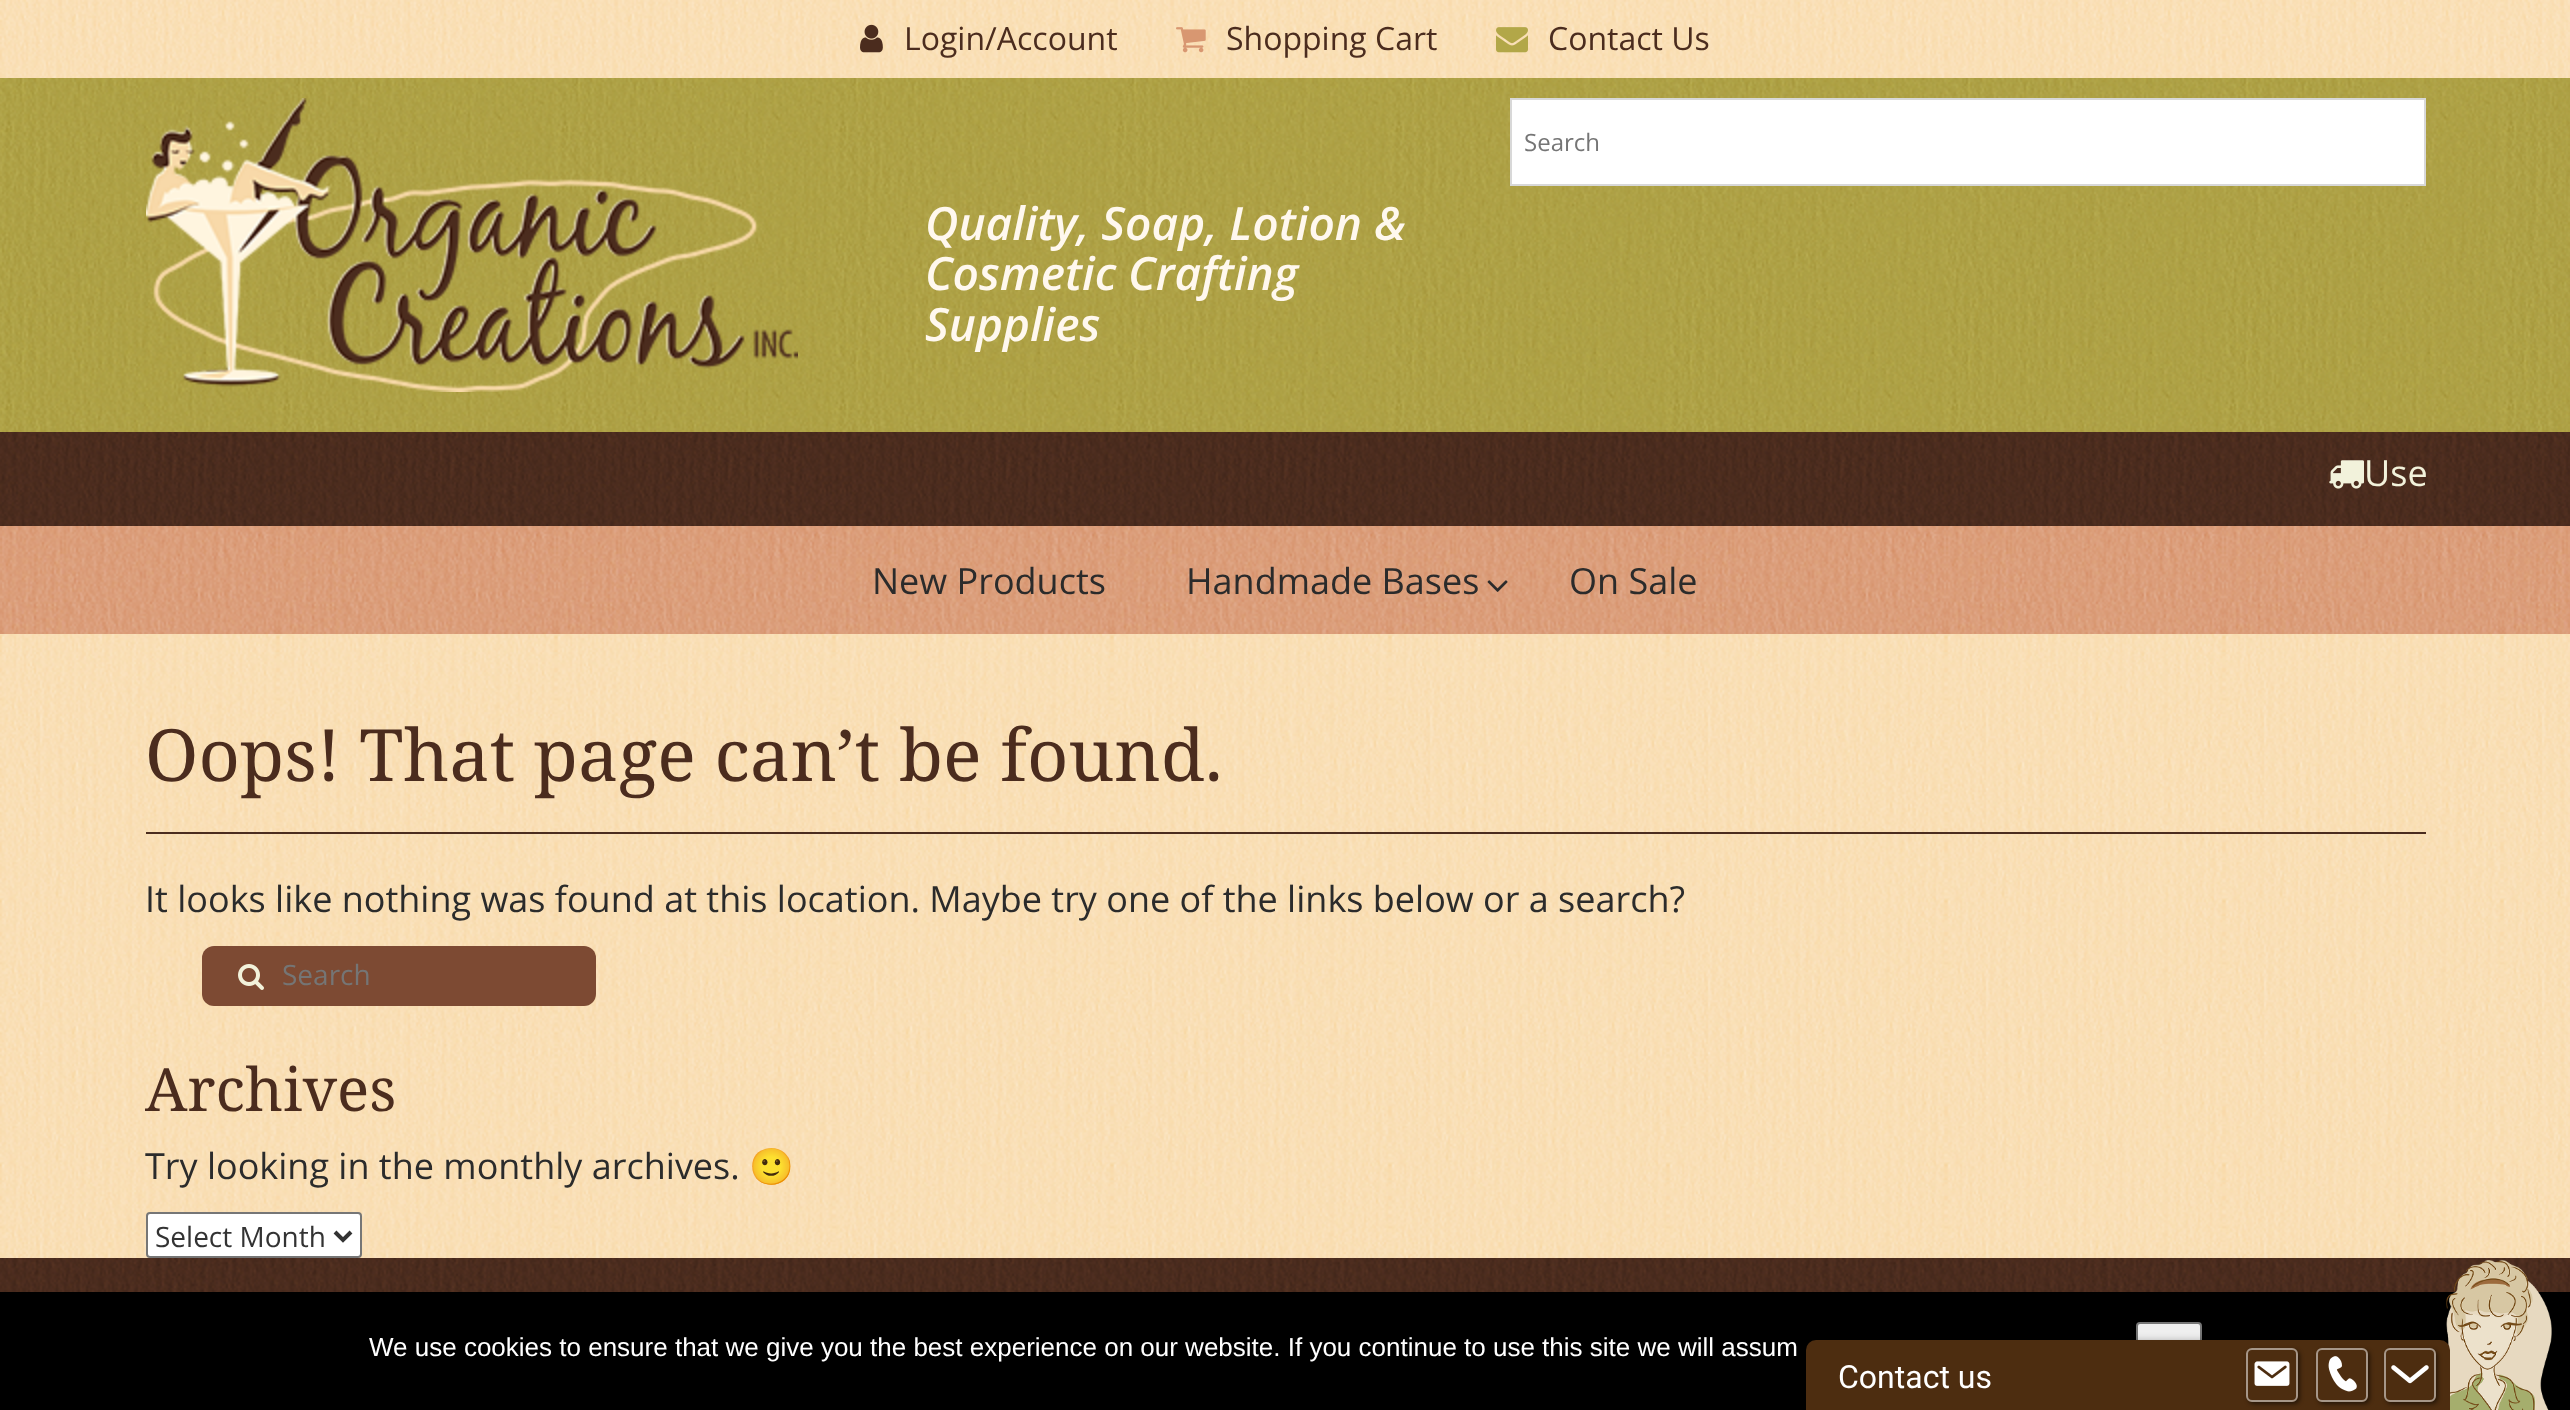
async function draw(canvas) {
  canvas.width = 2570;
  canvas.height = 1410;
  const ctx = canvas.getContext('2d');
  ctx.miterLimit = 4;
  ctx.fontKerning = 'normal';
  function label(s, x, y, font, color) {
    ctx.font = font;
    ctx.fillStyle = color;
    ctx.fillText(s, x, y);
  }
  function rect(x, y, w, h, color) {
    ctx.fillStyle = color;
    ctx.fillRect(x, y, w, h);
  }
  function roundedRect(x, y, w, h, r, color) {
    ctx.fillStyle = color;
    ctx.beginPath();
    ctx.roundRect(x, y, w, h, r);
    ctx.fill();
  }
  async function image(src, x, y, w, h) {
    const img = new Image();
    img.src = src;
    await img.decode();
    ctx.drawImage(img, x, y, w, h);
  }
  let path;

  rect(0, 0, 2570, 1410, '#fff');
  await image('assets/img1.png', 0, 634, 2570, 624);
  await image('assets/img2.png', 0, 78, 2570, 354);
  await image('assets/img3.png', 0, 0, 2570, 78);
  await image('assets/img4.png', 860, 24, 23, 29);
  label('Login/Account', 904, 50, '32px Open Sans', '#4b2c1e');
  await image('assets/img5.png', 1176, 27, 30, 26);
  label('Shopping Cart', 1226, 50, '32px Open Sans', '#4b2c1e');
  await image('assets/img6.png', 1496, 27, 32, 26);
  label('Contact Us', 1548, 50, '32px Open Sans', '#4b2c1e');
  await image('assets/img7.png', 146, 98, 652, 294);
  ctx.fillStyle = '#fff';
  ctx.beginPath();
  ctx.rect(1511, 99, 914, 86);
  ctx.fill();
  ctx.strokeStyle = '#d8d8d8';
  ctx.lineWidth = 2;
  ctx.stroke();
  label('Search', 1524, 151, '24px Open Sans', '#757575');
  label('Quality, Soap, Lotion &', 925, 240, 'italic 600 46px Open Sans', '#fff8ee');
  label('Cosmetic Crafting', 925, 290, 'italic 600 46px Open Sans', '#fff8ee');
  label('Supplies', 925, 341, 'italic 600 46px Open Sans', '#fff8ee');
  await image('assets/img8.png', 0, 432, 2570, 94);
  await image('assets/img9.png', 2329, 460, 35, 29);
  label('Use', 2364, 486, '36px Open Sans', '#f2f2db');
  await image('assets/img10.png', 0, 526, 2570, 108);
  label('New Products', 872, 594, '36px Open Sans', '#2b2b2b');
  label('Handmade Bases', 1186, 594, '36px Open Sans', '#2b2b2b');
  await image('assets/img11.png', 1487, 580, 21, 12);
  label('On Sale', 1569, 594, '36px Open Sans', '#2b2b2b');
  rect(146, 832, 2280, 2, '#4b2c1e');
  label('Oops! That page can’t be found.', 145, 781, '72px Noto Serif', '#4b2c1e');
  label('It looks like nothing was found at this location. Maybe try one of the links below or a search?', 145, 912, '36px Open Sans', '#2b2b2b');
  roundedRect(202, 946, 394, 60, 12, '#7d4a33');
  await image('assets/img12.png', 238, 964, 26, 26);
  label('Search', 282, 985, '28px Open Sans', '#757575');
  label('Archives', 145, 1111, '60px Noto Serif', '#4b2c1e');
  label('Try looking in the monthly archives.', 145, 1179, '36px Open Sans', '#2b2b2b');
  label('🙂', 749, 1179, '36px Noto Color Emoji', '#2b2b2b');
  ctx.fillStyle = '#fff';
  ctx.beginPath();
  ctx.roundRect(147, 1213, 214, 44, 3);
  ctx.fill();
  ctx.strokeStyle = '#767676';
  ctx.stroke();
  path = new Path2D('M335 1232L343 1240L351 1232');
  ctx.strokeStyle = '#333';
  ctx.lineWidth = 4;
  ctx.stroke(path);
  label('Select Month', 155, 1247, '28px Open Sans', '#333');
  await image('assets/img13.png', 0, 1258, 2570, 34);
  rect(0, 1292, 2570, 118, '#000');
  label('We use cookies to ensure that we give you the best experience on our website. If you continue to use this site we will assum', 369, 1356, '26px Liberation Sans', '#fff');
  ctx.fillStyle = '#efefef';
  ctx.beginPath();
  ctx.roundRect(2137, 1323, 64, 50, 3);
  ctx.fill();
  ctx.strokeStyle = '#767676';
  ctx.lineWidth = 2;
  ctx.stroke();
  ctx.fillStyle = '#00000066';
  ctx.filter = 'blur(4px)';
  ctx.beginPath();
  ctx.roundRect(1808, 1342, 644, 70, 10);
  ctx.fill();
  ctx.filter = 'none';
  await image('assets/img17.png', 2446, 1260, 106, 150);
  ctx.fillStyle = '#4d2d10';
  ctx.beginPath();
  ctx.roundRect(1806, 1340, 644, 70, [10, 10, 0, 0]);
  ctx.fill();
  label('Contact us', 1838, 1388, '32px Roboto', '#fff');
  ctx.save();
  path = new Path2D('M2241 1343H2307V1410H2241ZM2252 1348H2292C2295.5 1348 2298 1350.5 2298 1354V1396C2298 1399.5 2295.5 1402 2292 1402H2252C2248.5 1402 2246 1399.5 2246 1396V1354C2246 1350.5 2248.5 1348 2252 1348Z');
  ctx.clip(path, 'evenodd');
  ctx.fillStyle = '#00000080';
  ctx.filter = 'blur(2px)';
  ctx.beginPath();
  ctx.roundRect(2248, 1350, 52, 54, 6);
  ctx.fill();
  ctx.filter = 'none';
  ctx.restore();
  ctx.beginPath();
  ctx.roundRect(2247, 1349, 50, 52, 5);
  ctx.strokeStyle = '#ffffff80';
  ctx.stroke();
  await image('assets/img14.png', 2254, 1361, 36, 25);
  ctx.save();
  path = new Path2D('M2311 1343H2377V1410H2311ZM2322 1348H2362C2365.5 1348 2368 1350.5 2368 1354V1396C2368 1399.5 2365.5 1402 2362 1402H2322C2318.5 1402 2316 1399.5 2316 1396V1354C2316 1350.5 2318.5 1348 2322 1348Z');
  ctx.clip(path, 'evenodd');
  ctx.fillStyle = '#00000080';
  ctx.filter = 'blur(2px)';
  ctx.beginPath();
  ctx.roundRect(2318, 1350, 52, 54, 6);
  ctx.fill();
  ctx.filter = 'none';
  ctx.restore();
  ctx.beginPath();
  ctx.roundRect(2317, 1349, 50, 52, 5);
  ctx.stroke();
  await image('assets/img15.png', 2328, 1356, 29, 36);
  ctx.save();
  path = new Path2D('M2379 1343H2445V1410H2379ZM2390 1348H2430C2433.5 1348 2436 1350.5 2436 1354V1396C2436 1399.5 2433.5 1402 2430 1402H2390C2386.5 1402 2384 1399.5 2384 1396V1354C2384 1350.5 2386.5 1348 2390 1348Z');
  ctx.clip(path, 'evenodd');
  ctx.fillStyle = '#00000080';
  ctx.filter = 'blur(2px)';
  ctx.beginPath();
  ctx.roundRect(2386, 1350, 52, 54, 6);
  ctx.fill();
  ctx.filter = 'none';
  ctx.restore();
  ctx.beginPath();
  ctx.roundRect(2385, 1349, 50, 52, 5);
  ctx.stroke();
  await image('assets/img16.png', 2391, 1365, 38, 19);
}

draw(document.querySelector('canvas'));
